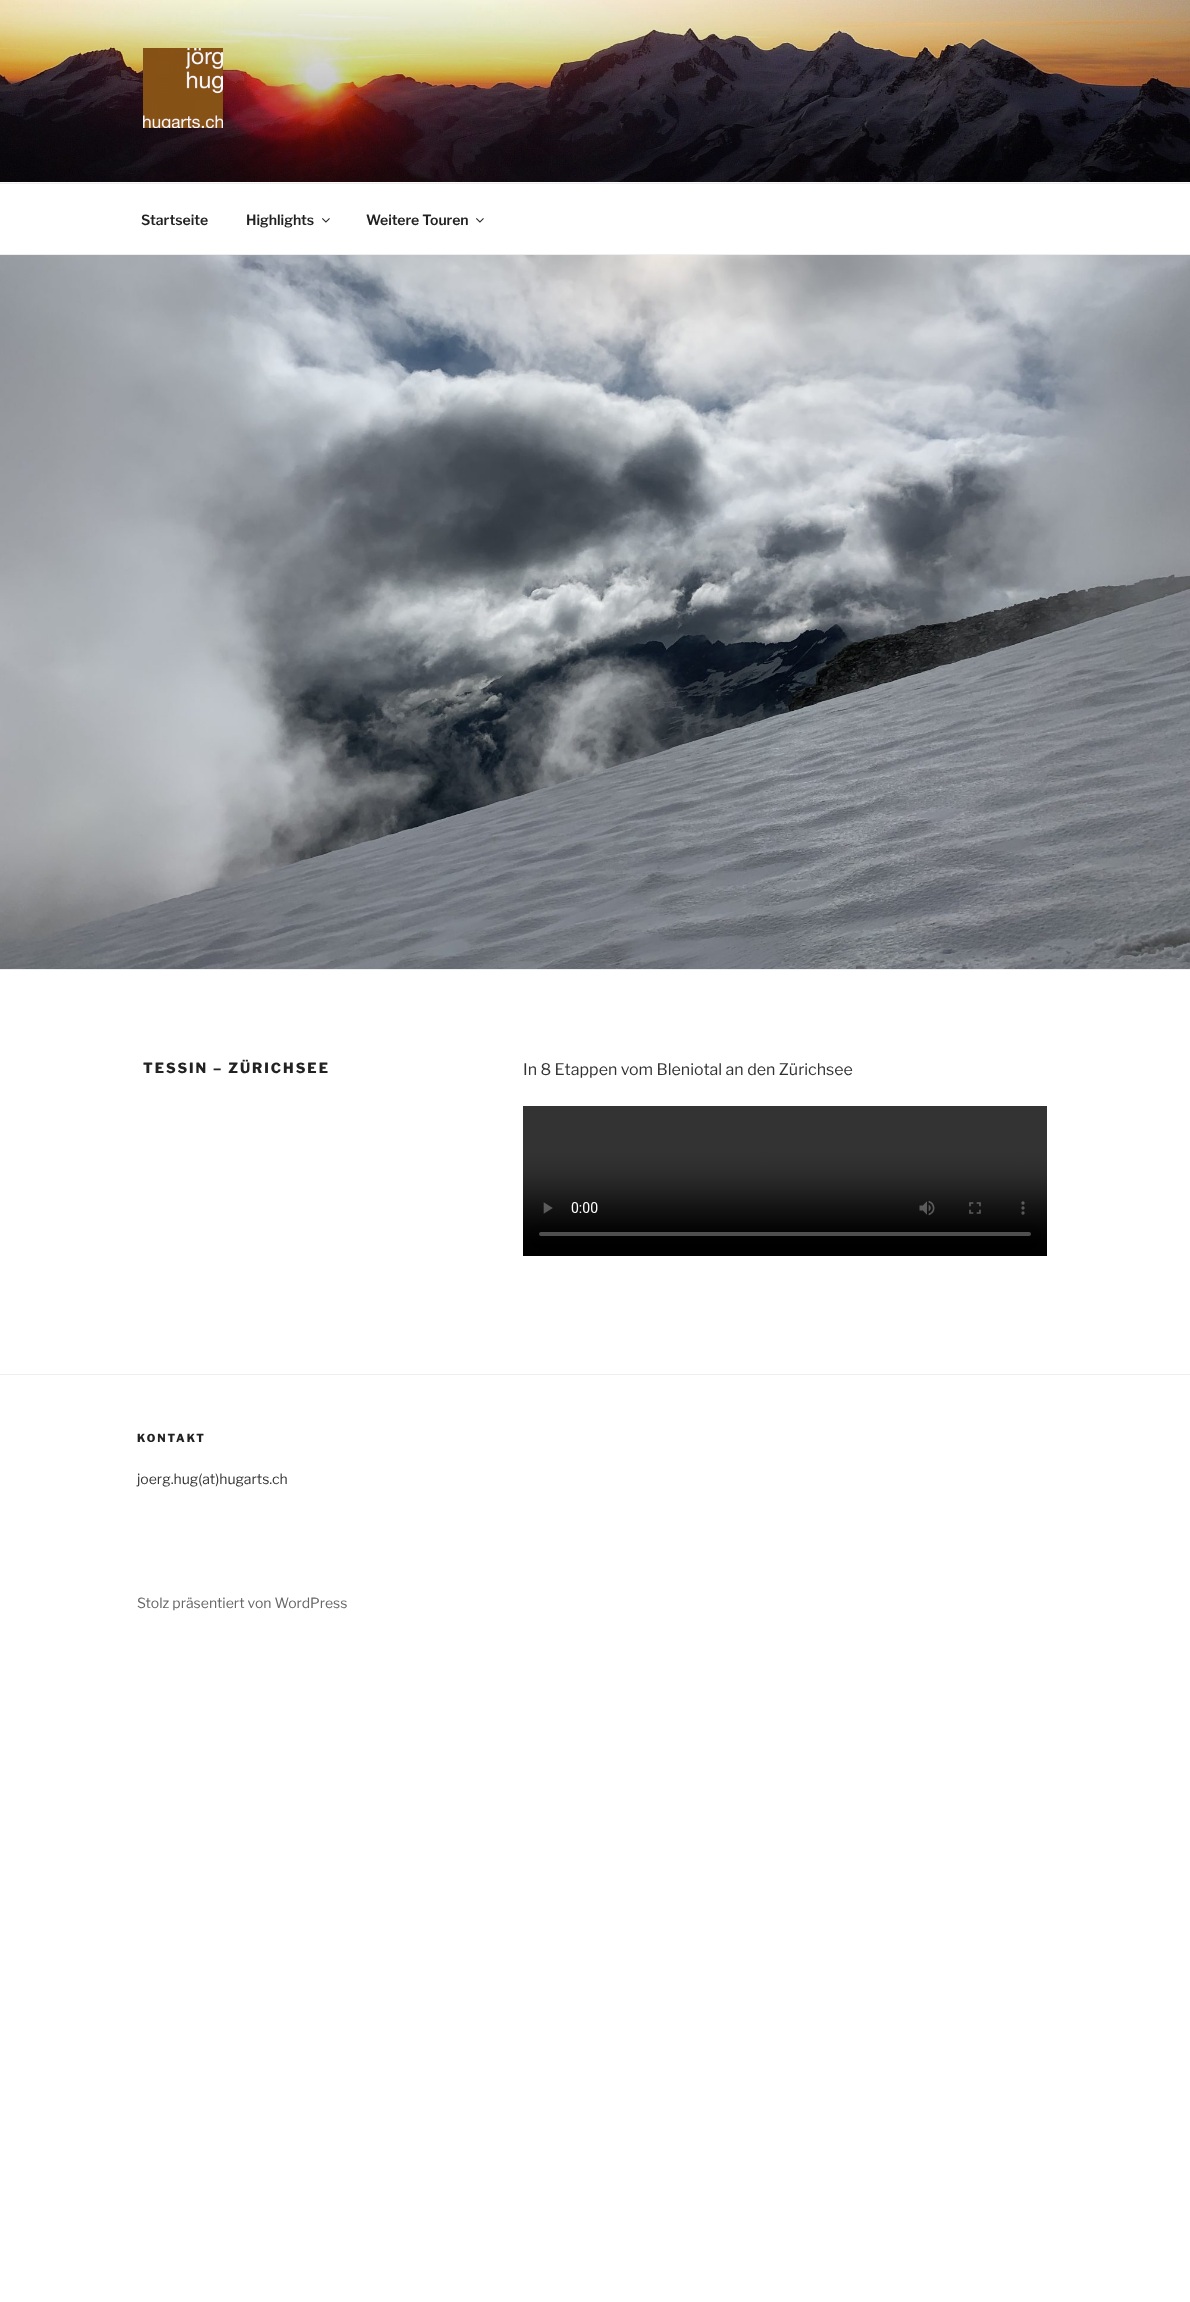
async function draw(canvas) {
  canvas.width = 1190;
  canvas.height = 2302;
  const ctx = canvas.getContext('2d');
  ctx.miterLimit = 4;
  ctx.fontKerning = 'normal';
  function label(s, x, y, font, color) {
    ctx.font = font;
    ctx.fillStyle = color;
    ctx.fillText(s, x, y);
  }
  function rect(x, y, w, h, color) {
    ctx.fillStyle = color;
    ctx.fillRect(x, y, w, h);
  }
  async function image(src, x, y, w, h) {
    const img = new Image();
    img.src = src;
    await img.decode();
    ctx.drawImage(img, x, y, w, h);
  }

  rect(0, 0, 1190, 2302, '#fff');
  rect(0, 182, 1190, 1, '#fafafa');
  await image('assets/img1.png', 0, 0, 1190, 182);
  await image('assets/img2.png', 143, 48, 80, 80);
  rect(0, 183, 1190, 1, '#eee');
  rect(0, 254, 1190, 1, '#eee');
  label('Startseite', 141, 225, '600 14px Libre Franklin', '#222');
  label('Highlights', 246, 225, '600 14px Libre Franklin', '#222');
  await image('assets/img3.png', 322, 218, 8, 5);
  label('Weitere Touren', 366, 225, '600 14px Libre Franklin', '#222');
  await image('assets/img3.png', 476, 218, 8, 5);
  rect(0, 969, 1190, 1, '#eee');
  await image('assets/img4.png', 0, 255, 1190, 714);
  ctx.letterSpacing = '2px';
  label('TESSIN – ZÜRICHSEE', 143, 1073, '800 14px Libre Franklin', '#222');
  ctx.letterSpacing = '0px';
  label('In 8 Etappen vom Bleniotal an den Zürichsee', 523, 1075, '16px Libre Franklin', '#333');
  await image('assets/img5.png', 523, 1106, 524, 150);
  rect(0, 1374, 1190, 1, '#eee');
  ctx.letterSpacing = '2px';
  label('KONTAKT', 137, 1442, '800 11px Libre Franklin', '#222');
  ctx.letterSpacing = '0px';
  label('joerg.hug(at)hugarts.ch', 137, 1484, '14px Libre Franklin', '#333');
  label('Stolz präsentiert von WordPress', 137, 1608, '14px Libre Franklin', '#666');
}

draw(document.querySelector('canvas'));
